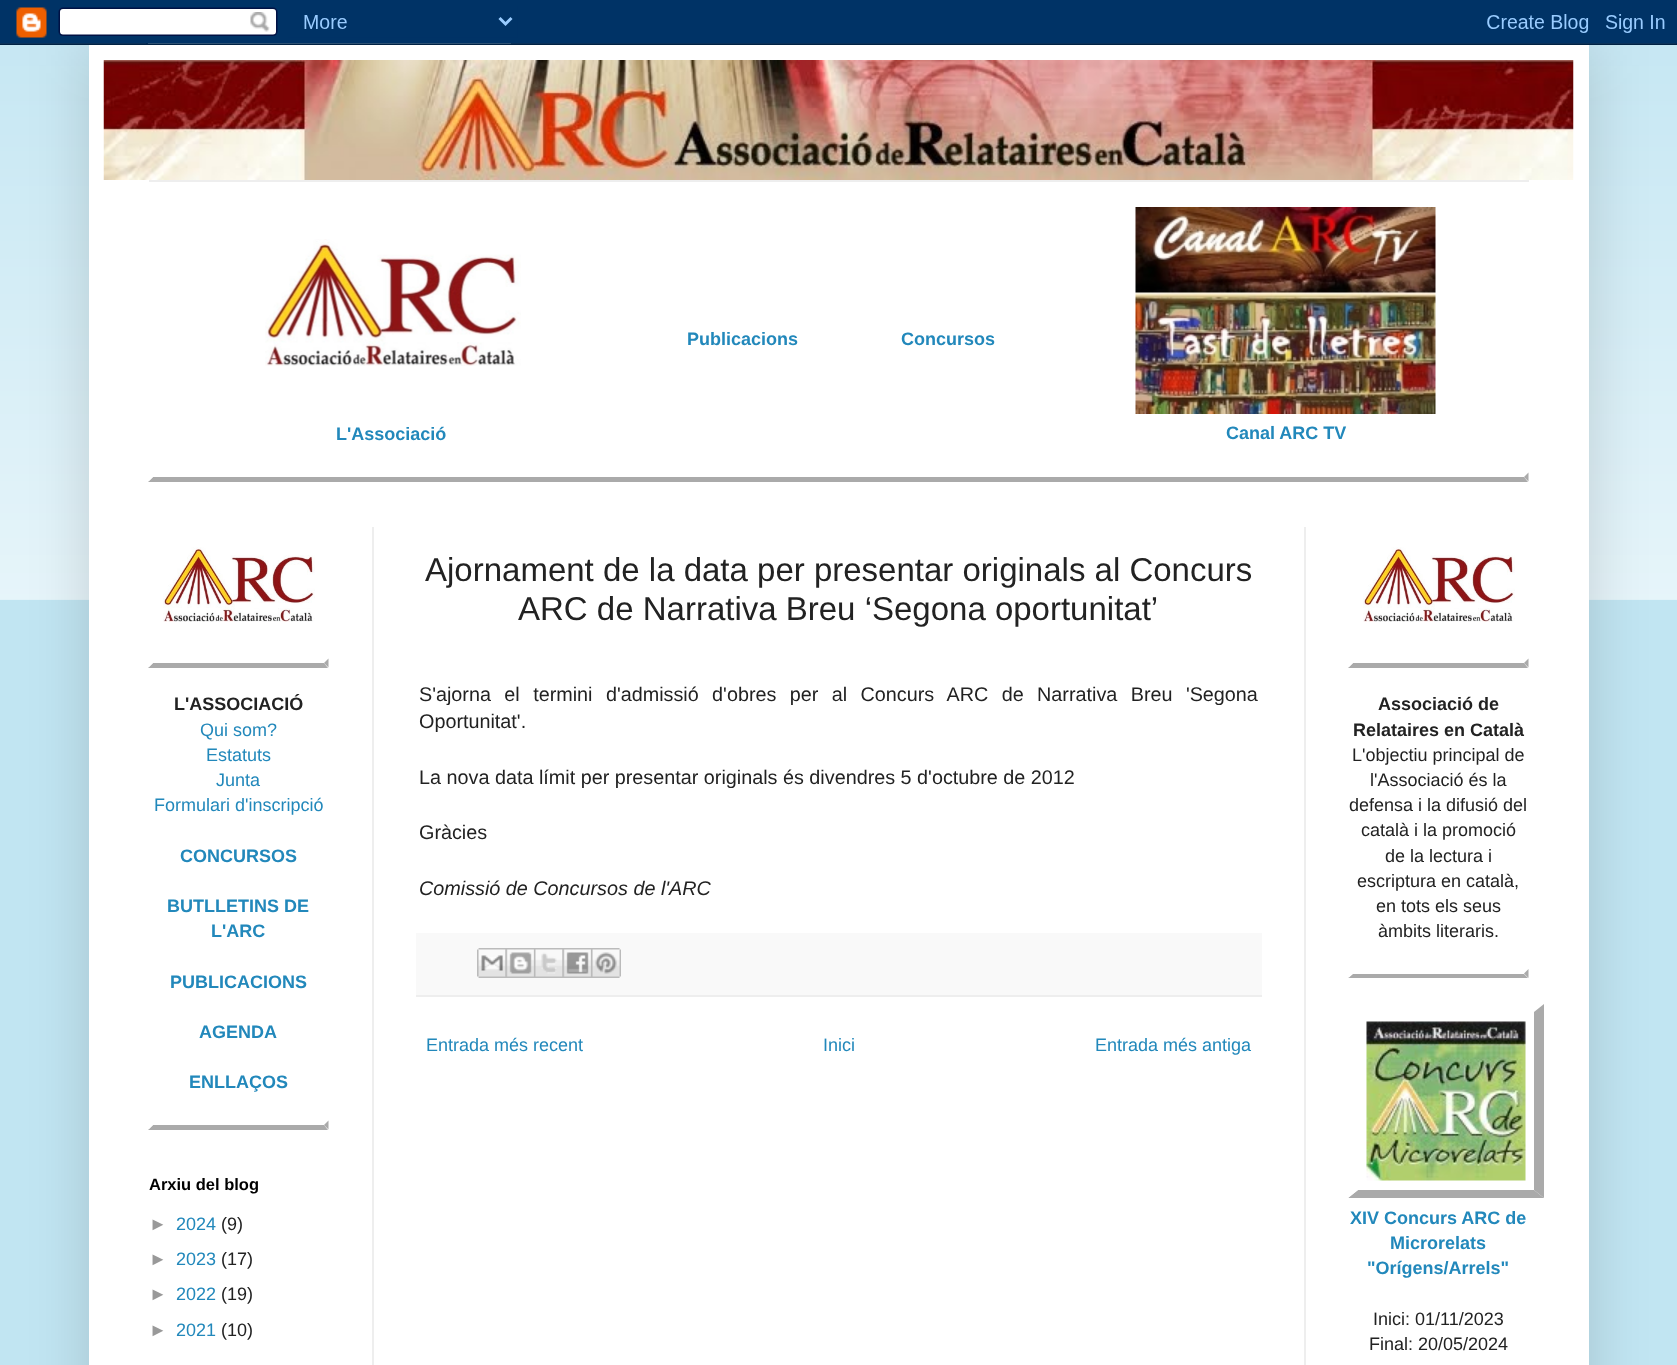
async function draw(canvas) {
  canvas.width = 1677;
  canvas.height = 1365;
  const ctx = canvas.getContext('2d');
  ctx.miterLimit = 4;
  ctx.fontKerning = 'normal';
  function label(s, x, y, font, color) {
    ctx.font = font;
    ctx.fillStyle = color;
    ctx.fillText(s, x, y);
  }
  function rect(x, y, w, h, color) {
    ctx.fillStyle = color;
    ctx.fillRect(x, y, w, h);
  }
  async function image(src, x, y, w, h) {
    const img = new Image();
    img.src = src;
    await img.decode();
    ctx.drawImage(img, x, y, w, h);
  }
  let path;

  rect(0, 0, 1677, 1365, '#c1e5f2');
  await image('assets/img2.png', 0, 43, 1677, 557);
  ctx.fillStyle = '#00000026';
  ctx.filter = 'blur(30px)';
  ctx.beginPath();
  ctx.rect(89, 45, 1500, 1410);
  ctx.fill();
  ctx.filter = 'none';
  await image('assets/img1.png', 0, 0, 1677, 45);
  rect(89, 45, 1500, 1320, '#fff');
  await image('assets/img3.png', 103, 60, 1471, 120);
  rect(149, 180, 1380, 2, '#eee');
  label('Publicacions', 687, 345, 'bold 18px Liberation Sans', '#28b');
  label('Concursos', 901, 345, 'bold 18px Liberation Sans', '#28b');
  await image('assets/img4.png', 265, 239, 256, 127);
  label('L\'Associació', 336, 440, 'bold 18px Liberation Sans', '#28b');
  await image('assets/img5.png', 1135, 207, 301, 207);
  label('Canal ARC TV', 1226, 439, 'bold 18px Liberation Sans', '#28b');
  ctx.fillStyle = '#aaa';
  path = new Path2D('M1528.5 472.5V481.5L1524 477Z');
  ctx.fill(path);
  path = new Path2D('M1528 482H148L153 477H1524Z');
  ctx.fill(path);
  ctx.fillStyle = '#fff';
  path = new Path2D('M148.5 481.5V472.5L153 477Z');
  ctx.fill(path);
  rect(372, 527, 2, 838, '#eee');
  rect(1304, 527, 2, 838, '#eee');
  await image('assets/img6.png', 163, 547, 152, 75);
  ctx.fillStyle = '#aaa';
  path = new Path2D('M328.5 658.5V667.5L324 663Z');
  ctx.fill(path);
  path = new Path2D('M328 668H148L153 663H324Z');
  ctx.fill(path);
  ctx.fillStyle = '#fff';
  path = new Path2D('M148.5 667.5V658.5L153 663Z');
  ctx.fill(path);
  label('L\'ASSOCIACIÓ', 174, 710, 'bold 18px Liberation Sans', '#222');
  label('Qui som?', 200, 736, '18px Liberation Sans', '#28b');
  label('Estatuts', 206, 761, '18px Liberation Sans', '#28b');
  label('Junta', 216, 786, '18px Liberation Sans', '#28b');
  label('Formulari d\'inscripció', 154, 811, '18px Liberation Sans', '#28b');
  label('CONCURSOS', 180, 862, 'bold 18px Liberation Sans', '#28b');
  label('BUTLLETINS DE', 167, 912, 'bold 18px Liberation Sans', '#28b');
  label('L\'ARC', 211, 937, 'bold 18px Liberation Sans', '#28b');
  label('PUBLICACIONS', 170, 988, 'bold 18px Liberation Sans', '#28b');
  label('AGENDA', 199, 1038, 'bold 18px Liberation Sans', '#28b');
  label('ENLLAÇOS', 189, 1088, 'bold 18px Liberation Sans', '#28b');
  ctx.fillStyle = '#aaa';
  path = new Path2D('M328.5 1120.5V1129.5L324 1125Z');
  ctx.fill(path);
  path = new Path2D('M328 1130H148L153 1125H324Z');
  ctx.fill(path);
  ctx.fillStyle = '#fff';
  path = new Path2D('M148.5 1129.5V1120.5L153 1125Z');
  ctx.fill(path);
  label('Arxiu del blog', 149, 1190, 'bold 16.5px Liberation Sans', '#000');
  label('►', 149, 1230, '18px Liberation Sans', '#999');
  label('2024', 176, 1230, '18px Liberation Sans', '#28b');
  label('(9)', 221, 1230, '18px Liberation Sans', '#222');
  label('►', 149, 1265, '18px Liberation Sans', '#999');
  label('2023', 176, 1265, '18px Liberation Sans', '#28b');
  label('(17)', 221, 1265, '18px Liberation Sans', '#222');
  label('►', 149, 1300, '18px Liberation Sans', '#999');
  label('2022', 176, 1300, '18px Liberation Sans', '#28b');
  label('(19)', 221, 1300, '18px Liberation Sans', '#222');
  label('►', 149, 1336, '18px Liberation Sans', '#999');
  label('2021', 176, 1336, '18px Liberation Sans', '#28b');
  label('(10)', 221, 1336, '18px Liberation Sans', '#222');
  label('Ajornament de la data per presentar originals al Concurs', 425, 581, '33px Liberation Sans', '#222');
  label('ARC de Narrativa Breu ‘Segona oportunitat’', 518, 620, '33px Liberation Sans', '#222');
  ctx.wordSpacing = '7.9px';
  label('S\'ajorna el termini d\'admissió d\'obres per al Concurs ARC de Narrativa Breu \'Segona', 419, 701, '19.8px Liberation Sans', '#222');
  ctx.wordSpacing = '0px';
  label('Oportunitat\'.', 419, 728, '19.8px Liberation Sans', '#222');
  label('La nova data límit per presentar originals és divendres 5 d\'octubre de 2012', 419, 784, '19.8px Liberation Sans', '#222');
  label('Gràcies', 419, 839, '19.8px Liberation Sans', '#222');
  label('Comissió de Concursos de l\'ARC', 419, 895, 'italic 19.8px Liberation Sans', '#222');
  rect(416, 933, 846, 62, '#f9f9f9');
  rect(416, 995, 846, 2, '#eee');
  await image('assets/img7.png', 477, 948, 29, 30);
  await image('assets/img8.png', 505, 948, 29, 30);
  await image('assets/img9.png', 534, 948, 29, 30);
  await image('assets/img10.png', 562, 948, 29, 30);
  await image('assets/img11.png', 591, 948, 30, 30);
  label('Entrada més recent', 426, 1051, '18px Liberation Sans', '#28b');
  label('Inici', 823, 1051, '18px Liberation Sans', '#28b');
  label('Entrada més antiga', 1095, 1051, '18px Liberation Sans', '#28b');
  await image('assets/img12.png', 1363, 547, 152, 75);
  ctx.fillStyle = '#aaa';
  path = new Path2D('M1528.5 658.5V667.5L1524 663Z');
  ctx.fill(path);
  path = new Path2D('M1528 668H1348L1353 663H1524Z');
  ctx.fill(path);
  ctx.fillStyle = '#fff';
  path = new Path2D('M1348.5 667.5V658.5L1353 663Z');
  ctx.fill(path);
  label('Associació de', 1378, 710, 'bold 18px Liberation Sans', '#222');
  label('Relataires en Català', 1353, 736, 'bold 18px Liberation Sans', '#222');
  label('L\'objectiu principal de', 1352, 761, '18px Liberation Sans', '#222');
  label('l\'Associació és la', 1370, 786, '18px Liberation Sans', '#222');
  label('defensa i la difusió del', 1349, 811, '18px Liberation Sans', '#222');
  label('català i la promoció', 1361, 836, '18px Liberation Sans', '#222');
  label('de la lectura i', 1385, 862, '18px Liberation Sans', '#222');
  label('escriptura en català,', 1357, 887, '18px Liberation Sans', '#222');
  label('en tots els seus', 1376, 912, '18px Liberation Sans', '#222');
  label('àmbits literaris.', 1378, 937, '18px Liberation Sans', '#222');
  ctx.fillStyle = '#aaa';
  path = new Path2D('M1528.5 969V978L1524 973.5Z');
  ctx.fill(path);
  path = new Path2D('M1528 978H1348L1353 974H1524Z');
  ctx.fill(path);
  ctx.fillStyle = '#fff';
  path = new Path2D('M1348.5 978V969L1353 973.5Z');
  ctx.fill(path);
  await image('assets/img13.png', 1366, 1021, 160, 160);
  label('XIV Concurs ARC de', 1350, 1224, 'bold 18px Liberation Sans', '#28b');
  ctx.fillStyle = '#aaa';
  path = new Path2D('M1544 1004V1198L1534 1190V1012Z');
  ctx.fill(path);
  path = new Path2D('M1544 1198H1348L1358 1190H1534Z');
  ctx.fill(path);
  ctx.fillStyle = '#fff';
  path = new Path2D('M1348 1198V1004L1358 1012V1190Z');
  ctx.fill(path);
  label('Microrelats', 1390, 1249, 'bold 18px Liberation Sans', '#28b');
  label('"Orígens/Arrels"', 1367, 1274, 'bold 18px Liberation Sans', '#28b');
  label('Inici: 01/11/2023', 1373, 1325, '18px Liberation Sans', '#222');
  label('Final: 20/05/2024', 1369, 1350, '18px Liberation Sans', '#222');
}

draw(document.querySelector('canvas'));
